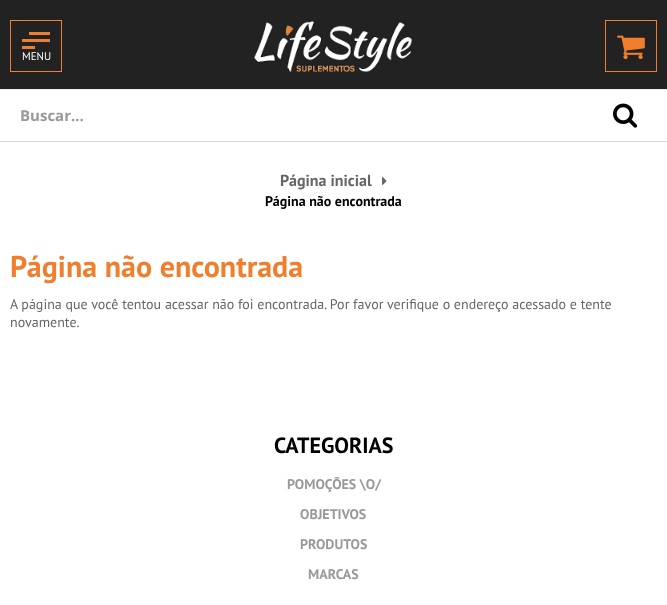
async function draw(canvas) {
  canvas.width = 667;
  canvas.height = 605;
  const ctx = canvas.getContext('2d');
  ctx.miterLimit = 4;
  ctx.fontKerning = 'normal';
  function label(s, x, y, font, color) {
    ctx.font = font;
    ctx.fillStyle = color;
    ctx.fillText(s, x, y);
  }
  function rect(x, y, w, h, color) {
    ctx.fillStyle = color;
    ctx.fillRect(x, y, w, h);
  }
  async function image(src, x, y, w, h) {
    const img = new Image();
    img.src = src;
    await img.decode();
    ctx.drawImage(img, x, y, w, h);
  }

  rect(0, 0, 667, 605, '#fff');
  rect(0, 0, 667, 89, '#222');
  ctx.strokeStyle = '#ef7e2d';
  ctx.strokeRect(10.5, 20.5, 51, 51);
  rect(29, 32, 21, 3, '#ef7e2d');
  rect(22, 39, 28, 3, '#ef7e2d');
  rect(22, 46, 13, 3, '#ef7e2d');
  label('MENU', 22, 60, '11px PT Sans', '#fff');
  await image('assets/img1.png', 253, 21, 160, 52);
  ctx.strokeRect(605.5, 20.5, 51, 51);
  await image('assets/img2.png', 617, 35, 28, 25);
  rect(0, 141, 667, 1, '#d8d8d8');
  rect(0, 89, 667, 1, '#ececec');
  label('Buscar...', 20, 121, 'bold 15px Open Sans', '#999');
  await image('assets/img3.png', 613, 103, 25, 25);
  label('Página inicial', 280, 186, 'bold 16px PT Sans', '#666');
  await image('assets/img4.png', 382, 177, 5, 8);
  label('Página não encontrada', 265, 206, 'bold 14px PT Sans', '#000');
  label('Página não encontrada', 10, 277, 'bold 30px PT Sans', '#ef7e2d');
  label('A página que você tentou acessar não foi encontrada. Por favor verifique o endereço acessado e tente', 10, 309, '14px PT Sans', '#666');
  label('novamente.', 10, 327, '14px PT Sans', '#666');
  label('CATEGORIAS', 274, 453, 'bold 22px PT Sans', '#000');
  label('POMOÇÕES \\O/', 287, 489, 'bold 14px PT Sans', '#999');
  label('OBJETIVOS', 300, 519, 'bold 14px PT Sans', '#999');
  label('PRODUTOS', 300, 549, 'bold 14px PT Sans', '#999');
  label('MARCAS', 308, 579, 'bold 14px PT Sans', '#999');
}

draw(document.querySelector('canvas'));
